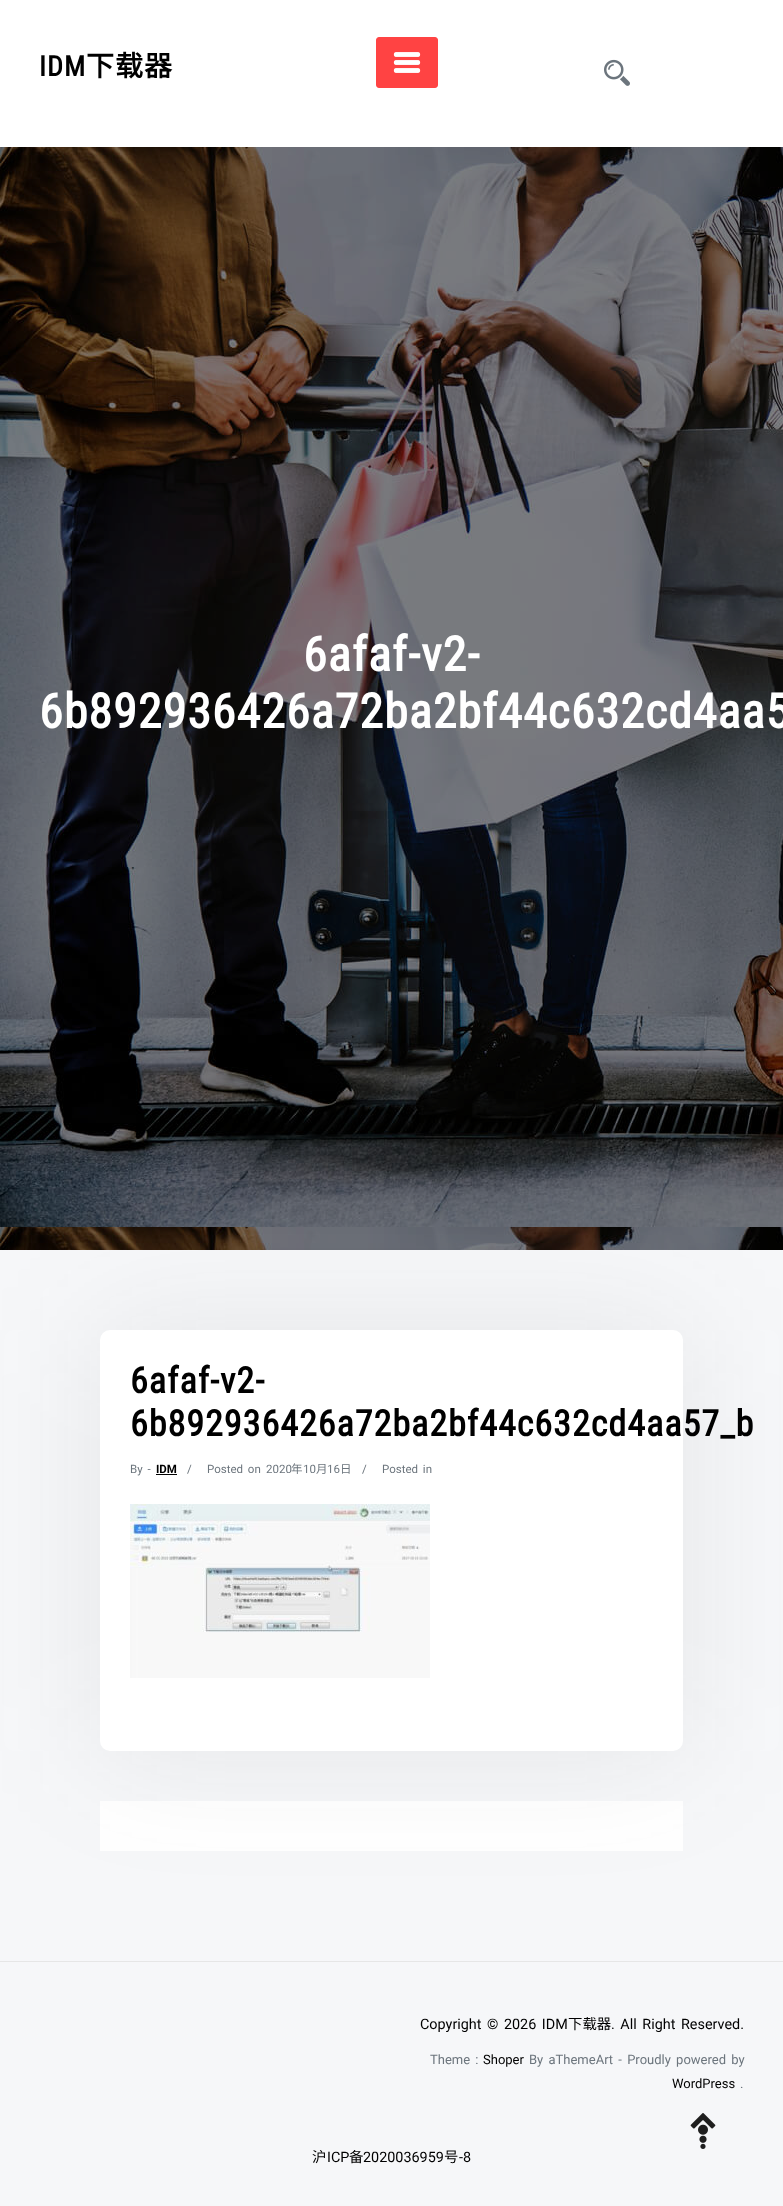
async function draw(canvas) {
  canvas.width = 783;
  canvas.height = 2206;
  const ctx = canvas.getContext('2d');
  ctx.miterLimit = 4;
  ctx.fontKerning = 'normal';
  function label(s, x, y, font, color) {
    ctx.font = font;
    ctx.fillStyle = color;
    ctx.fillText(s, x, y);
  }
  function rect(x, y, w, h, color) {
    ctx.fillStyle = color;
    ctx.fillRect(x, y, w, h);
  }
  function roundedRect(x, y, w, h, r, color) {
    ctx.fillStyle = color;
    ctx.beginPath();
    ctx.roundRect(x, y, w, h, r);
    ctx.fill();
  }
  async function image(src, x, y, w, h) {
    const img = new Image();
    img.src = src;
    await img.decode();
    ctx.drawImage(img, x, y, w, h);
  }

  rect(0, 0, 783, 2206, '#f6f7f9');
  rect(0, 0, 783, 147, '#fff');
  ctx.letterSpacing = '1px';
  label('IDM', 39, 76, 'bold 28px Roboto Condensed', '#000');
  label('下载器', 86, 76, 'bold 28px Noto Sans CJK SC', '#000');
  ctx.fillStyle = '#ff4343';
  ctx.beginPath();
  ctx.roundRect(376.5, 37.5, 61, 50, 2.5);
  ctx.fill();
  ctx.strokeStyle = '#ff4343';
  ctx.stroke();
  await image('assets/img1.png', 393, 52, 28, 21);
  await image('assets/img2.png', 604, 59, 26, 27);
  await image('assets/img3.png', 0, 147, 783, 1103);
  label('6afaf-v2-', 303, 671, 'bold 48px Roboto Condensed', '#fff');
  label('6b892936426a72ba2bf44c632cd4aa5', 39, 728, 'bold 48px Roboto Condensed', '#fff');
  rect(100, 1801, 583, 50, '#fff');
  ctx.fillStyle = '#4a4a4a1a';
  ctx.filter = 'blur(65.5px)';
  ctx.beginPath();
  ctx.roundRect(100, 1330, 583, 421, 10);
  ctx.fill();
  ctx.filter = 'none';
  roundedRect(100, 1330, 583, 421, 10, '#fff');
  label('6afaf-v2-', 130, 1393, 'bold 36px Roboto Condensed', '#000');
  label('6b892936426a72ba2bf44c632cd4aa57_b', 130, 1436, 'bold 36px Roboto Condensed', '#000');
  ctx.letterSpacing = '0px';
  ctx.wordSpacing = '2px';
  label('By -', 130, 1473, '11.5px Roboto', '#6c757d');
  ctx.wordSpacing = '0px';
  label('IDM', 156, 1473, 'bold 11.5px Roboto', '#000');
  rect(156, 1474, 21, 1, '#000');
  label('/', 187, 1473, '11.5px Roboto', '#6c757d');
  ctx.wordSpacing = '2px';
  label('Posted on', 207, 1473, '11.5px Roboto', '#6c757d');
  ctx.wordSpacing = '0px';
  label('2020', 266, 1473, '11.5px Roboto', '#6c757d');
  label('年', 291, 1473, '11.5px Noto Sans CJK SC', '#6c757d');
  label('10', 303, 1473, '11.5px Roboto', '#6c757d');
  label('月', 316, 1473, '11.5px Noto Sans CJK SC', '#6c757d');
  label('16', 327, 1473, '11.5px Roboto', '#6c757d');
  label('日', 340, 1473, '11.5px Noto Sans CJK SC', '#6c757d');
  label('/', 362, 1473, '11.5px Roboto', '#6c757d');
  ctx.wordSpacing = '2px';
  label('Posted in', 382, 1473, '11.5px Roboto', '#6c757d');
  await image('assets/img4.png', 130, 1504, 300, 174);
  rect(0, 1961, 783, 1, '#e6e6e6');
  label('Copyright © 2026 IDM', 420, 2029, '14.4px Roboto', '#000');
  ctx.wordSpacing = '0px';
  label('下载器', 568, 2029, '14.4px Noto Sans CJK SC', '#000');
  ctx.wordSpacing = '2px';
  label('. All Right Reserved.', 611, 2029, '14.4px Roboto', '#000');
  label('Theme :', 430, 2064, '13px Roboto', '#6c757d');
  ctx.wordSpacing = '0px';
  label('Shoper', 483, 2064, '13px Roboto', '#000');
  ctx.wordSpacing = '2px';
  label('By aThemeArt - Proudly powered by', 529, 2064, '13px Roboto', '#6c757d');
  ctx.wordSpacing = '0px';
  label('WordPress', 672, 2088, '13px Roboto', '#000');
  label('.', 740, 2088, '13px Roboto', '#6c757d');
  await image('assets/img5.png', 690, 2113, 26, 36);
  label('沪', 312, 2162, '14.4px Noto Sans CJK SC', '#000');
  label('ICP', 327, 2162, '14.4px Roboto', '#000');
  label('备', 349, 2162, '14.4px Noto Sans CJK SC', '#000');
  label('2020036959', 363, 2162, '14.4px Roboto', '#000');
  label('号', 444, 2162, '14.4px Noto Sans CJK SC', '#000');
  label('-8', 459, 2162, '14.4px Roboto', '#000');
}

draw(document.querySelector('canvas'));
